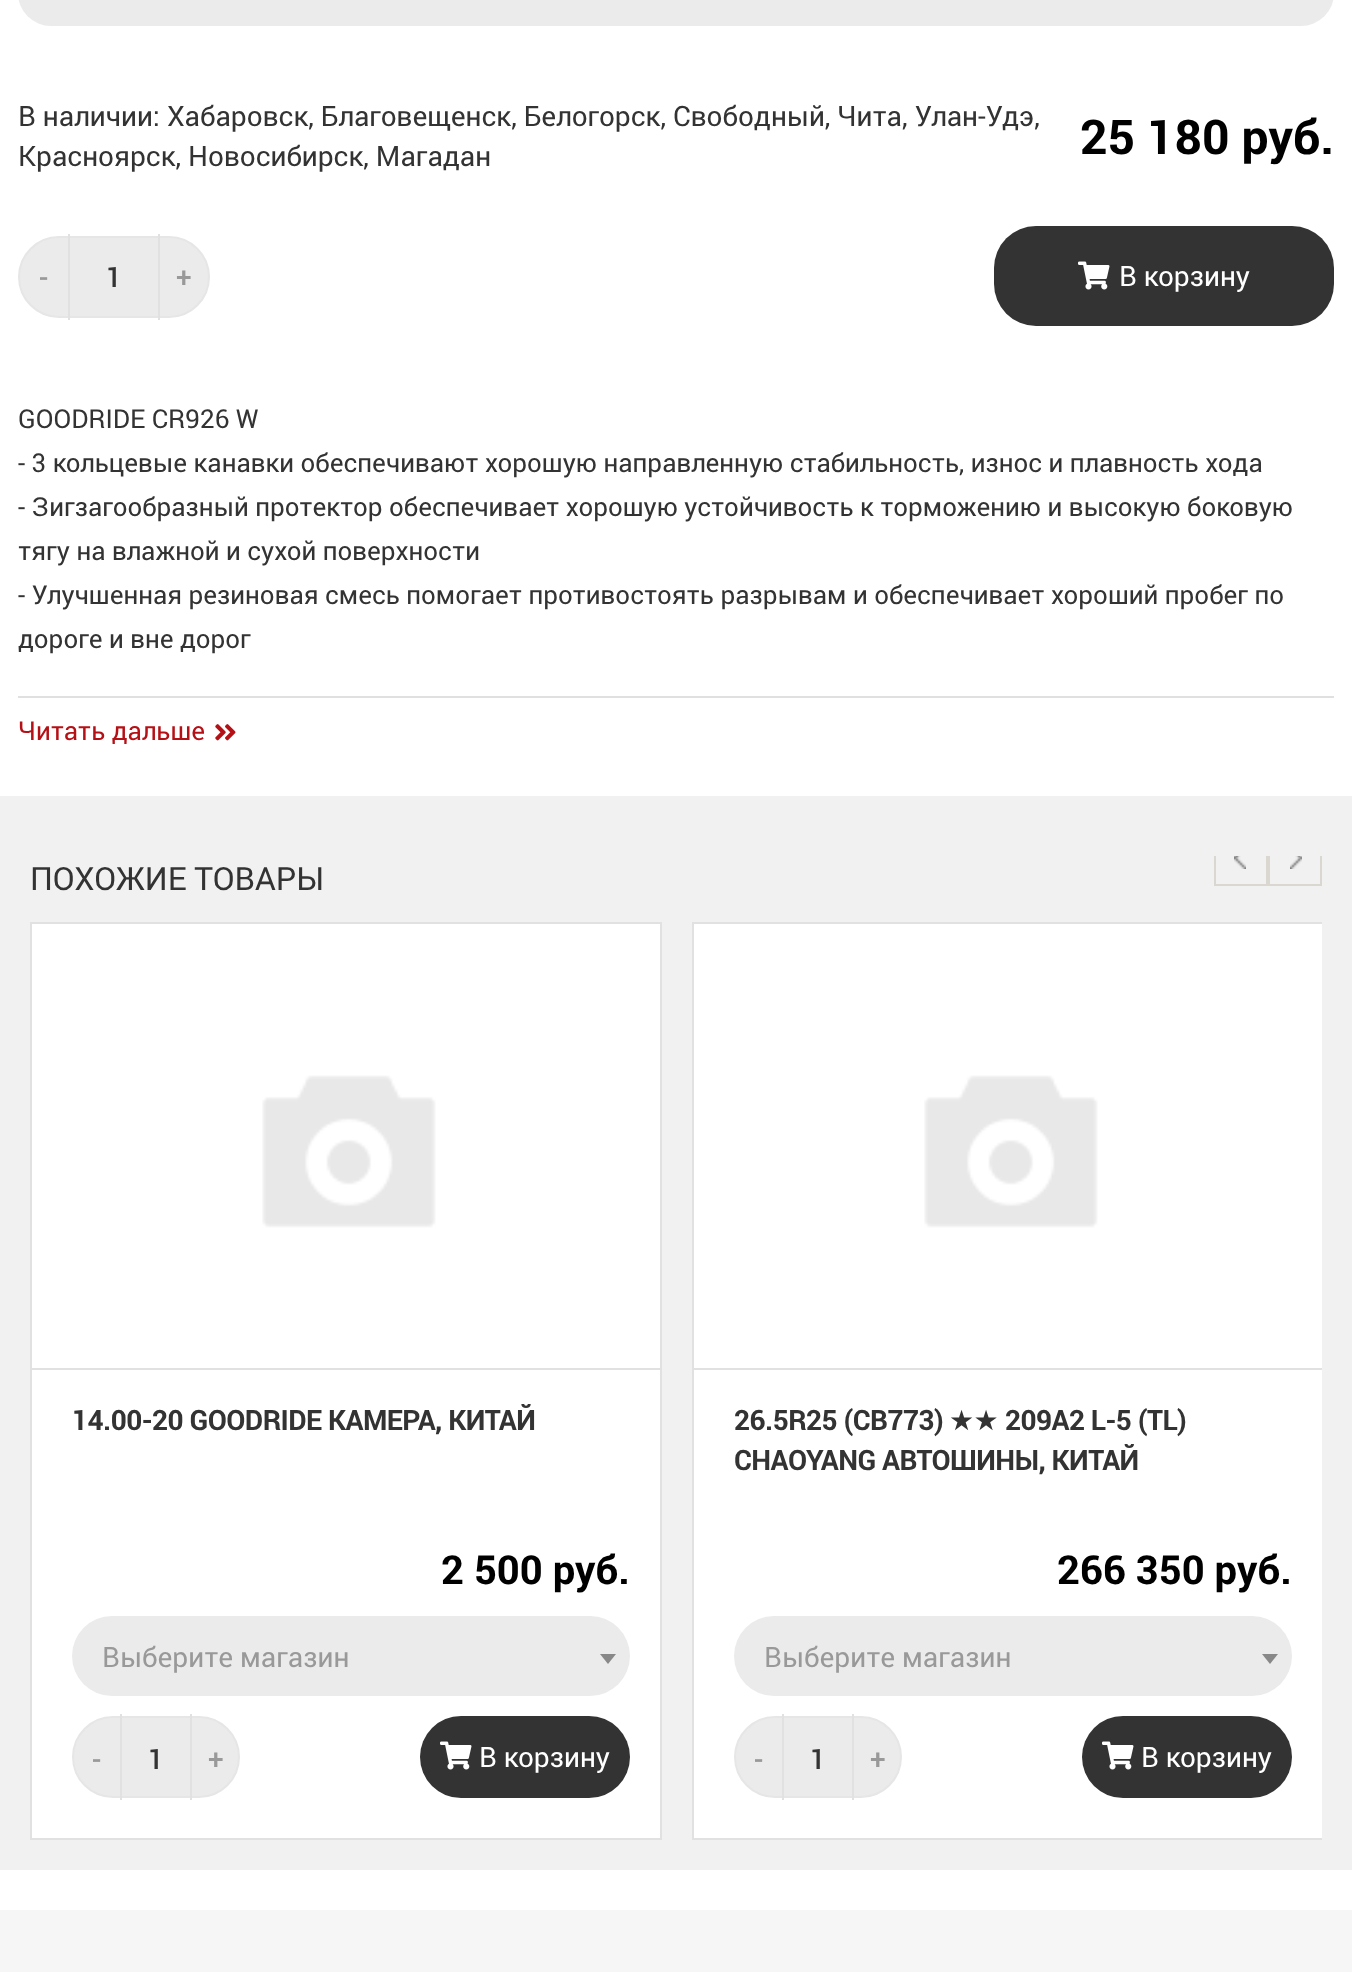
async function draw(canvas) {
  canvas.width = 1352;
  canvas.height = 1972;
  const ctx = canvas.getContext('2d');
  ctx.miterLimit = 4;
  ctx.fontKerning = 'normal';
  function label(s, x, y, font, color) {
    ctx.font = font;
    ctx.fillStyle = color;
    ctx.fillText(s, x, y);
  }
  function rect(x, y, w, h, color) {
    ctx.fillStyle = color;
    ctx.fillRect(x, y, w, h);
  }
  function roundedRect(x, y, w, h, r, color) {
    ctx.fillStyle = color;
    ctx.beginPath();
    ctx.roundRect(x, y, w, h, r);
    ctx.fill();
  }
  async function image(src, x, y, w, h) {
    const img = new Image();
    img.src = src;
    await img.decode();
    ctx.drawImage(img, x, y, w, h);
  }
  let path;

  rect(0, 0, 1352, 1972, '#fff');
  roundedRect(18, -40, 1316, 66, 40, '#ebebeb');
  label('В наличии: Хабаровск, Благовещенск, Белогорск, Свободный, Чита, Улан-Удэ,', 18, 126, '28px Roboto', '#333');
  label('Красноярск, Новосибирск, Магадан', 18, 166, '28px Roboto', '#333');
  label('25 180 руб.', 1080, 154, 'bold 48px Roboto', '#000');
  ctx.fillStyle = '#ebebeb';
  ctx.beginPath();
  ctx.roundRect(19, 237, 190, 80, 40);
  ctx.fill();
  ctx.strokeStyle = '#e6e6e6';
  ctx.lineWidth = 2;
  ctx.stroke();
  rect(68, 234, 2, 86, '#e1e1e1');
  label('-', 39, 287, '500 28px Roboto', '#999');
  label('1', 106, 287, '500 28px Roboto', '#333');
  rect(158, 234, 2, 86, '#e1e1e1');
  label('+', 176, 287, '500 28px Roboto', '#999');
  roundedRect(994, 226, 340, 100, 42, '#333');
  await image('assets/img1.png', 1078, 261, 32, 29);
  label('В корзину', 1119, 286, '28px Roboto', '#fff');
  label('GOODRIDE CR926 W', 18, 428, '26px Roboto', '#333');
  label('- 3 кольцевые канавки обеспечивают хорошую направленную стабильность, износ и плавность хода', 18, 472, '26px Roboto', '#333');
  label('- Зигзагообразный протектор обеспечивает хорошую устойчивость к торможению и высокую боковую', 18, 516, '26px Roboto', '#333');
  label('тягу на влажной и сухой поверхности', 18, 560, '26px Roboto', '#333');
  label('- Улучшенная резиновая смесь помогает противостоять разрывам и обеспечивает хороший пробег по', 18, 604, '26px Roboto', '#333');
  label('дороге и вне дорог', 18, 648, '26px Roboto', '#333');
  rect(18, 696, 1316, 2, '#e0e0e0');
  label('Читать дальше', 18, 740, '26px Roboto', '#b51015');
  await image('assets/img2.png', 215, 724, 21, 17);
  rect(0, 796, 1352, 1074, '#f1f1f1');
  label('ПОХОЖИЕ ТОВАРЫ', 30, 890, '32px Roboto', '#333');
  ctx.save();
  ctx.beginPath();
  ctx.rect(30, 856, 1292, 984);
  ctx.clip();
  ctx.strokeStyle = '#d9d7cf';
  ctx.strokeRect(1215, 833, 52, 52);
  ctx.restore();
  await image('assets/img3.png', 1234, 856, 12, 13);
  ctx.save();
  ctx.beginPath();
  ctx.rect(30, 856, 1292, 984);
  ctx.clip();
  ctx.strokeStyle = '#d9d7cf';
  ctx.strokeRect(1269, 833, 52, 52);
  ctx.restore();
  await image('assets/img4.png', 1290, 856, 12, 13);
  ctx.fillStyle = '#fff';
  ctx.beginPath();
  ctx.rect(31, 923, 630, 916);
  ctx.fill();
  ctx.strokeStyle = '#e1e1e1';
  ctx.stroke();
  rect(32, 1368, 628, 2, '#e1e1e1');
  await image('assets/img5.png', 262, 1075, 174, 153);
  ctx.letterSpacing = '-0.55px';
  label('14.00-20 GOODRIDE КАМЕРА, КИТАЙ', 72, 1430, 'bold 28px Roboto', '#333');
  ctx.letterSpacing = '0px';
  label('2 500 руб.', 441, 1584, 'bold 40px Roboto', '#000');
  roundedRect(72, 1616, 558, 80, 40, '#ebebeb');
  label('Выберите магазин', 102, 1667, '28px Roboto', '#999');
  ctx.fillStyle = '#888';
  path = new Path2D('M600 1654H616L608 1664Z');
  ctx.fill(path);
  ctx.fillStyle = '#ebebeb';
  ctx.beginPath();
  ctx.roundRect(73, 1717, 166, 80, 40);
  ctx.fill();
  ctx.strokeStyle = '#e6e6e6';
  ctx.stroke();
  rect(120, 1714, 2, 86, '#e1e1e1');
  label('-', 92, 1769, '500 28px Roboto', '#999');
  label('1', 148, 1769, '500 28px Roboto', '#333');
  rect(190, 1714, 2, 86, '#e1e1e1');
  label('+', 208, 1769, '500 28px Roboto', '#999');
  roundedRect(420, 1716, 210, 82, 41, '#333');
  await image('assets/img1.png', 440, 1741, 32, 29);
  label('В корзину', 479, 1767, '28px Roboto', '#fff');
  rect(694, 924, 628, 914, '#fff');
  ctx.save();
  ctx.beginPath();
  ctx.rect(30, 922, 1292, 918);
  ctx.clip();
  ctx.strokeStyle = '#e1e1e1';
  ctx.strokeRect(693, 923, 630, 916);
  ctx.restore();
  rect(694, 1368, 628, 2, '#e1e1e1');
  await image('assets/img5.png', 924, 1075, 174, 153);
  ctx.letterSpacing = '-0.55px';
  label('26.5R25 (CB773)', 734, 1430, 'bold 28px Roboto', '#333');
  label('★★', 949, 1430, '28px DejaVu Sans', '#333');
  label('209A2 L-5 (TL)', 1005, 1430, 'bold 28px Roboto', '#333');
  label('CHAOYANG АВТОШИНЫ, КИТАЙ', 734, 1470, 'bold 28px Roboto', '#333');
  ctx.letterSpacing = '0px';
  label('266 350 руб.', 1057, 1584, 'bold 40px Roboto', '#000');
  roundedRect(734, 1616, 558, 80, 40, '#ebebeb');
  label('Выберите магазин', 764, 1667, '28px Roboto', '#999');
  ctx.fillStyle = '#888';
  path = new Path2D('M1262 1654H1278L1270 1664Z');
  ctx.fill(path);
  ctx.fillStyle = '#ebebeb';
  ctx.beginPath();
  ctx.roundRect(735, 1717, 166, 80, 40);
  ctx.fill();
  ctx.stroke();
  rect(782, 1714, 2, 86, '#e1e1e1');
  label('-', 754, 1769, '500 28px Roboto', '#999');
  label('1', 810, 1769, '500 28px Roboto', '#333');
  rect(852, 1714, 2, 86, '#e1e1e1');
  label('+', 870, 1769, '500 28px Roboto', '#999');
  roundedRect(1082, 1716, 210, 82, 41, '#333');
  await image('assets/img1.png', 1102, 1741, 32, 29);
  label('В корзину', 1141, 1767, '28px Roboto', '#fff');
  rect(0, 1910, 1352, 62, '#f7f6f6');
}

draw(document.querySelector('canvas'));
